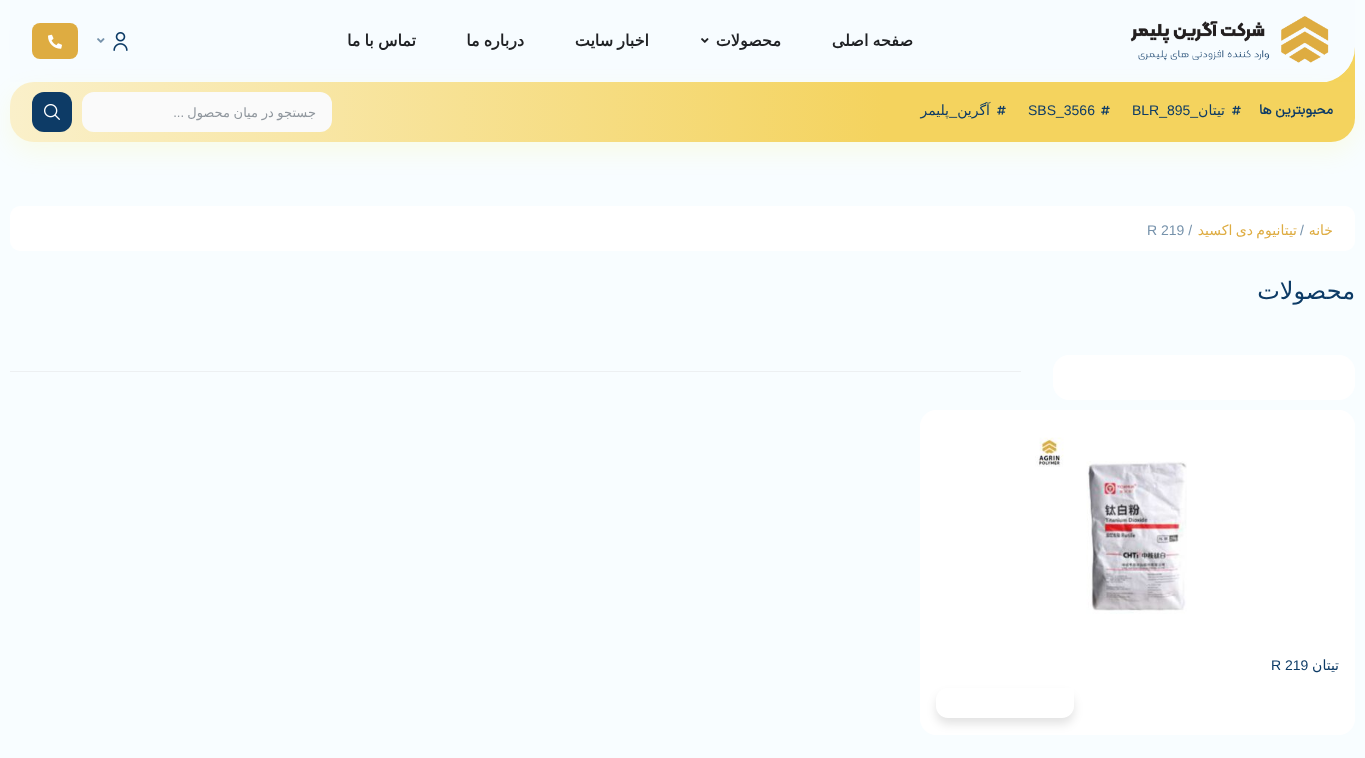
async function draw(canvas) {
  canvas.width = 1365;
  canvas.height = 758;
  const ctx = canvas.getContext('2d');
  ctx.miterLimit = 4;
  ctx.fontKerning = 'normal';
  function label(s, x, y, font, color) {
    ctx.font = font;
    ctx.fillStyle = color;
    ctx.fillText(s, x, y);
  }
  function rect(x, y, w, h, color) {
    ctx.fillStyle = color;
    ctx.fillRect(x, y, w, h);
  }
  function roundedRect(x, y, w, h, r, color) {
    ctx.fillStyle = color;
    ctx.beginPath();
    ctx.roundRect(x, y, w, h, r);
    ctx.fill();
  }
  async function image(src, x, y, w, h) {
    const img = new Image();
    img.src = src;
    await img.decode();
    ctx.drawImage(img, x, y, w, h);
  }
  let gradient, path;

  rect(0, 0, 1365, 758, '#f8fdff');
  rect(1320, 47, 35, 35, '#f4d35e');
  ctx.fillStyle = '#f7fcff';
  ctx.filter = 'blur(0.5px)';
  ctx.beginPath();
  ctx.roundRect(9, 1, 1345, 82, 35);
  ctx.fill();
  ctx.filter = 'none';
  ctx.beginPath();
  ctx.roundRect(10, 0, 1345, 82, [0, 0, 35, 0]);
  ctx.fill();
  await image('assets/img1.png', 1130, 16, 199, 47);
  ctx.wordSpacing = '-1px';
  ctx.direction = 'rtl';
  label('صفحه اصلی', 913, 46, 'bold 16px DejaVu Sans', '#1f2124');
  ctx.wordSpacing = '0px';
  label('محصولات', 781, 46, 'bold 16px DejaVu Sans', '#1f2124');
  await image('assets/img2.png', 701, 38, 8, 5);
  ctx.wordSpacing = '-1px';
  label('اخبار سایت', 649, 46, 'bold 16px DejaVu Sans', '#1f2124');
  label('درباره ما', 524, 46, 'bold 16px DejaVu Sans', '#1f2124');
  label('تماس با ما', 416, 46, 'bold 16px DejaVu Sans', '#1f2124');
  await image('assets/img3.png', 113, 32, 15, 19);
  await image('assets/img4.png', 97, 38, 8, 5);
  roundedRect(32, 23, 46, 36, 8, '#deac41');
  await image('assets/img5.png', 48, 34, 14, 15);
  ctx.fillStyle = '#ffed0017';
  ctx.filter = 'blur(12.5px)';
  ctx.beginPath();
  ctx.roundRect(10, 92, 1345, 60, 24);
  ctx.fill();
  ctx.filter = 'none';
  gradient = ctx.createLinearGradient(1355, 112, 10, 112);
  gradient.addColorStop(0.35, '#f4d35e');
  gradient.addColorStop(1, '#faf0ca');
  ctx.fillStyle = gradient;
  ctx.beginPath();
  ctx.roundRect(10, 82, 1345, 60, [24, 0, 24, 24]);
  ctx.fill();
  ctx.wordSpacing = '0px';
  label('محبوبترین ها', 1333, 114, 'bold 14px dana', '#0d3b66');
  await image('assets/img6.png', 1232, 105, 9, 10);
  label('تیتان', 1225, 115, '14px DejaVu Sans', '#0d3b66');
  label('_', 1198, 115, '14px Liberation Sans', '#0d3b66');
  ctx.direction = 'ltr';
  label('BLR_895', 1132, 115, '14px Liberation Sans', '#0d3b66');
  await image('assets/img6.png', 1101, 105, 9, 10);
  label('SBS_3566', 1028, 115, '14px Liberation Sans', '#0d3b66');
  await image('assets/img6.png', 997, 105, 9, 10);
  ctx.direction = 'rtl';
  label('آگرین', 990, 115, '14px DejaVu Sans', '#0d3b66');
  label('پلیمر', 949, 115, '14px DejaVu Sans', '#0d3b66');
  label('_', 957, 115, '14px Liberation Sans', '#0d3b66');
  roundedRect(82, 92, 250, 40, 12, '#fafafa');
  ctx.wordSpacing = '-0.5px';
  label('جستجو در میان محصول', 316, 117, '13px DejaVu Sans', '#90979e');
  ctx.wordSpacing = '0px';
  label('...', 184, 117, '13px Liberation Sans', '#90979e');
  roundedRect(32, 92, 40, 40, 12, '#0d3b66');
  await image('assets/img7.png', 44, 104, 16, 16);
  roundedRect(10, 206, 1345, 45, 10, '#fff');
  label('خانه', 1333, 235, '14px DejaVu Sans', '#deac41');
  ctx.direction = 'ltr';
  label('/', 1300, 235, '14px Liberation Sans', '#7692ab');
  ctx.wordSpacing = '-1px';
  ctx.direction = 'rtl';
  label('تیتانیوم دی اکسید', 1297, 235, '14px DejaVu Sans', '#deac41');
  ctx.wordSpacing = '0px';
  ctx.direction = 'ltr';
  label('R 219 /', 1147, 235, '14px Liberation Sans', '#7692ab');
  ctx.direction = 'rtl';
  label('محصولات', 1355, 299, '24px DejaVu Sans', '#0d3b66');
  roundedRect(1053, 355, 302, 45, 16, '#fff');
  rect(10, 371, 1011, 1, '#edf0f2');
  roundedRect(920, 410, 435, 325, 16, '#fff');
  await image('assets/img8.png', 1035, 437, 152, 177);
  label('تیتان', 1339, 670, '14px DejaVu Sans', '#0d3b66');
  ctx.direction = 'ltr';
  label('R 219', 1271, 670, '14px Liberation Sans', '#0d3b66');
  ctx.save();
  path = new Path2D('M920 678H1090V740H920ZM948 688H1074V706C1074 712.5 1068.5 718 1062 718H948C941.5 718 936 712.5 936 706V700C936 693.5 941.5 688 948 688Z');
  ctx.clip(path, 'evenodd');
  ctx.fillStyle = '#0000001c';
  ctx.filter = 'blur(5px)';
  ctx.beginPath();
  ctx.roundRect(936, 694, 138, 30, 12);
  ctx.fill();
  ctx.filter = 'none';
  ctx.restore();
}

draw(document.querySelector('canvas'));
